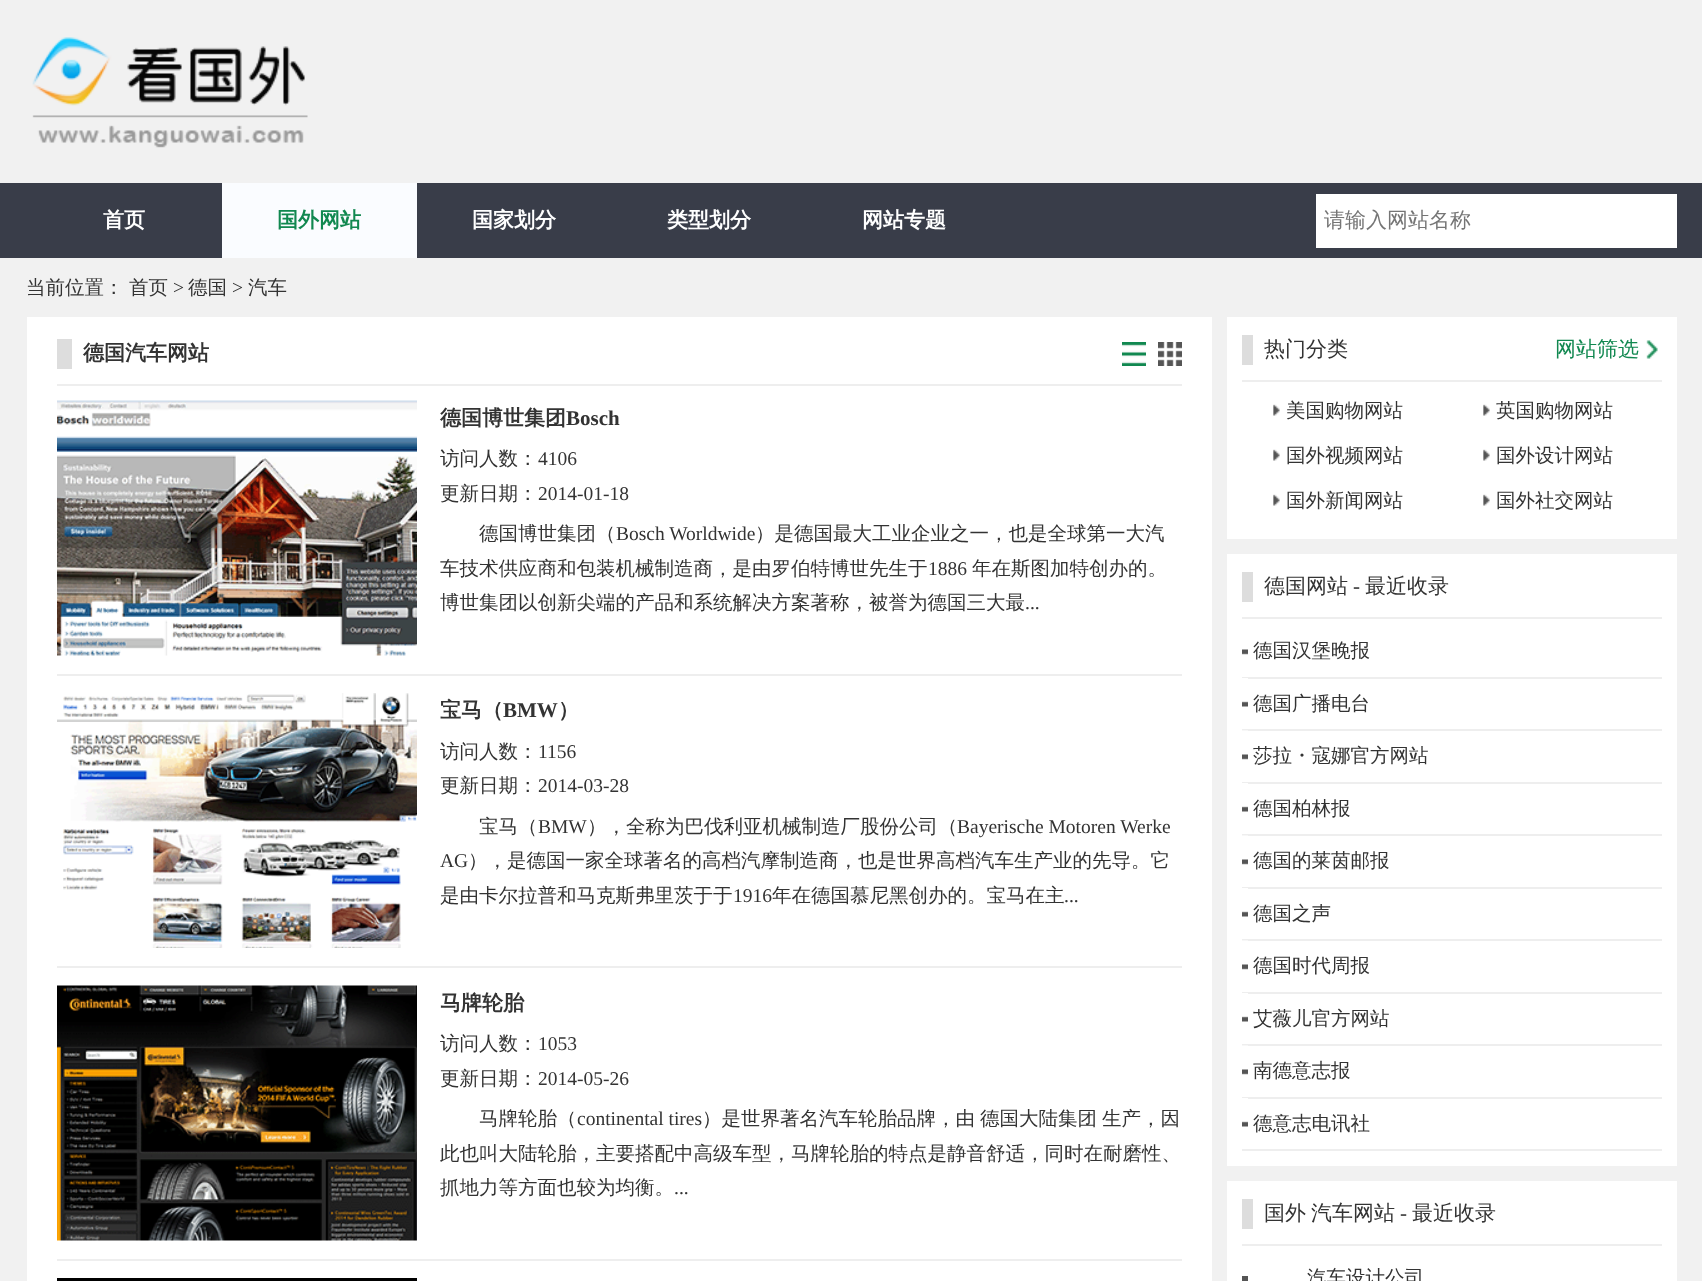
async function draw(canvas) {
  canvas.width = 1702;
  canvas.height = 1281;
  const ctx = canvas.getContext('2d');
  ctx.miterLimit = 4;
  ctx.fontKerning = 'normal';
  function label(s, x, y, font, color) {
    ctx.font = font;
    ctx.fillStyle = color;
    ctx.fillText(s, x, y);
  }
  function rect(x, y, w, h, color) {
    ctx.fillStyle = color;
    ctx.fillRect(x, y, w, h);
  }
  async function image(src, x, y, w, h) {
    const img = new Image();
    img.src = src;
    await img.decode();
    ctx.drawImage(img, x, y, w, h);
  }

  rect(0, 0, 1702, 1281, '#f1f1f1');
  await image('assets/img1.png', 32, 37, 276, 111);
  rect(0, 183, 1702, 75, '#393d49');
  label('首页', 103, 227, 'bold 21px WenQuanYi Zen Hei', '#fff');
  rect(222, 183, 195, 75, '#fafcff');
  label('国外网站', 277, 227, 'bold 21px WenQuanYi Zen Hei', '#118850');
  label('国家划分', 472, 227, 'bold 21px WenQuanYi Zen Hei', '#fff');
  label('类型划分', 667, 227, 'bold 21px WenQuanYi Zen Hei', '#fff');
  label('网站专题', 862, 227, 'bold 21px WenQuanYi Zen Hei', '#fff');
  rect(1316, 194, 361, 54, '#fff');
  label('请输入网站名称', 1324, 227, '500 21px WenQuanYi Zen Hei', '#757575');
  label('当前位置：', 26, 294, '500 19.5px WenQuanYi Zen Hei', '#333');
  label('首页', 129, 294, '500 19.5px WenQuanYi Zen Hei', '#333');
  label('>', 173, 294, '19.5px Liberation Serif', '#333');
  label('德国', 188, 294, '500 19.5px WenQuanYi Zen Hei', '#333');
  label('>', 232, 294, '19.5px Liberation Serif', '#333');
  label('汽车', 248, 294, '500 19.5px WenQuanYi Zen Hei', '#333');
  rect(27, 317, 1185, 964, '#fff');
  rect(57, 384, 1125, 2, '#eee');
  rect(57, 339, 15, 30, '#ddd');
  label('德国汽车网站', 83, 360, 'bold 21px WenQuanYi Zen Hei', '#333');
  await image('assets/img2.png', 1122, 342, 24, 24);
  await image('assets/img3.png', 1158, 342, 24, 24);
  rect(57, 674, 1125, 2, '#eee');
  await image('assets/img4.png', 57, 400, 360, 256);
  label('德国博世集团', 440, 425, 'bold 21px WenQuanYi Zen Hei', '#333');
  label('Bosch', 566, 425, 'bold 21px Liberation Serif', '#333');
  label('访问人数：', 440, 465, '500 19.5px WenQuanYi Zen Hei', '#333');
  label('4106', 538, 465, '19.5px Liberation Serif', '#333');
  label('更新日期：', 440, 500, '500 19.5px WenQuanYi Zen Hei', '#333');
  label('2014-01-18', 538, 500, '19.5px Liberation Serif', '#333');
  label('德国博世集团（', 479, 540, '500 19.5px WenQuanYi Zen Hei', '#333');
  label('Bosch Worldwide', 616, 540, '19.5px Liberation Serif', '#333');
  label('）是德国最大工业企业之一，也是全球第一大汽', 755, 540, '500 19.5px WenQuanYi Zen Hei', '#333');
  label('车技术供应商和包装机械制造商，是由罗伯特博世先生于', 440, 575, '500 19.5px WenQuanYi Zen Hei', '#333');
  label('1886', 928, 575, '19.5px Liberation Serif', '#333');
  label('年在斯图加特创办的。', 972, 575, '500 19.5px WenQuanYi Zen Hei', '#333');
  label('博世集团以创新尖端的产品和系统解决方案著称，被誉为德国三大最', 440, 609, '500 19.5px WenQuanYi Zen Hei', '#333');
  label('...', 1025, 609, '19.5px Liberation Serif', '#333');
  rect(57, 966, 1125, 2, '#eee');
  await image('assets/img5.png', 57, 693, 360, 255);
  label('宝马（', 440, 717, 'bold 21px WenQuanYi Zen Hei', '#333');
  label('BMW', 503, 717, 'bold 21px Liberation Serif', '#333');
  label('）', 558, 717, 'bold 21px WenQuanYi Zen Hei', '#333');
  label('访问人数：', 440, 758, '500 19.5px WenQuanYi Zen Hei', '#333');
  label('1156', 538, 758, '19.5px Liberation Serif', '#333');
  label('更新日期：', 440, 792, '500 19.5px WenQuanYi Zen Hei', '#333');
  label('2014-03-28', 538, 792, '19.5px Liberation Serif', '#333');
  label('宝马（', 479, 833, '500 19.5px WenQuanYi Zen Hei', '#333');
  label('BMW', 538, 833, '19.5px Liberation Serif', '#333');
  label('），全称为巴伐利亚机械制造厂股份公司（', 587, 833, '500 19.5px WenQuanYi Zen Hei', '#333');
  label('Bayerische Motoren Werke', 957, 833, '19.5px Liberation Serif', '#333');
  label('AG', 440, 867, '19.5px Liberation Serif', '#333');
  label('），是德国一家全球著名的高档汽摩制造商，也是世界高档汽车生产业的先导。它', 468, 867, '500 19.5px WenQuanYi Zen Hei', '#333');
  label('是由卡尔拉普和马克斯弗里茨于于', 440, 902, '500 19.5px WenQuanYi Zen Hei', '#333');
  label('1916', 733, 902, '19.5px Liberation Serif', '#333');
  label('年在德国慕尼黑创办的。宝马在主', 772, 902, '500 19.5px WenQuanYi Zen Hei', '#333');
  label('...', 1064, 902, '19.5px Liberation Serif', '#333');
  rect(57, 1259, 1125, 2, '#eee');
  await image('assets/img6.png', 57, 985, 360, 256);
  label('马牌轮胎', 440, 1010, 'bold 21px WenQuanYi Zen Hei', '#333');
  label('访问人数：', 440, 1050, '500 19.5px WenQuanYi Zen Hei', '#333');
  label('1053', 538, 1050, '19.5px Liberation Serif', '#333');
  label('更新日期：', 440, 1085, '500 19.5px WenQuanYi Zen Hei', '#333');
  label('2014-05-26', 538, 1085, '19.5px Liberation Serif', '#333');
  label('马牌轮胎（', 479, 1125, '500 19.5px WenQuanYi Zen Hei', '#333');
  label('continental tires', 577, 1125, '19.5px Liberation Serif', '#333');
  label('）是世界著名汽车轮胎品牌，由', 702, 1125, '500 19.5px WenQuanYi Zen Hei', '#333');
  label('德国大陆集团', 980, 1125, '500 19.5px WenQuanYi Zen Hei', '#333');
  label('生产，因', 1102, 1125, '500 19.5px WenQuanYi Zen Hei', '#333');
  label('此也叫大陆轮胎，主要搭配中高级车型，马牌轮胎的特点是静音舒适，同时在耐磨性、', 440, 1160, '500 19.5px WenQuanYi Zen Hei', '#333');
  label('抓地力等方面也较为均衡。', 440, 1194, '500 19.5px WenQuanYi Zen Hei', '#333');
  label('...', 674, 1194, '19.5px Liberation Serif', '#333');
  rect(57, 1278, 360, 3, '#000');
  rect(1227, 317, 450, 222, '#fff');
  rect(1242, 335, 11, 30, '#ddd');
  label('热门分类', 1264, 356, '500 21px WenQuanYi Zen Hei', '#333');
  await image('assets/img7.png', 1646, 340, 12, 19);
  label('网站筛选', 1555, 356, '500 21px WenQuanYi Zen Hei', '#118850');
  rect(1242, 380, 420, 2, '#eee');
  await image('assets/img8.png', 1273, 404, 7, 12);
  label('美国购物网站', 1286, 417, '500 19.5px WenQuanYi Zen Hei', '#333');
  await image('assets/img8.png', 1483, 404, 7, 12);
  label('英国购物网站', 1496, 417, '500 19.5px WenQuanYi Zen Hei', '#333');
  await image('assets/img8.png', 1273, 449, 7, 12);
  label('国外视频网站', 1286, 462, '500 19.5px WenQuanYi Zen Hei', '#333');
  await image('assets/img8.png', 1483, 449, 7, 12);
  label('国外设计网站', 1496, 462, '500 19.5px WenQuanYi Zen Hei', '#333');
  await image('assets/img8.png', 1273, 494, 7, 12);
  label('国外新闻网站', 1286, 507, '500 19.5px WenQuanYi Zen Hei', '#333');
  await image('assets/img8.png', 1483, 494, 7, 12);
  label('国外社交网站', 1496, 507, '500 19.5px WenQuanYi Zen Hei', '#333');
  rect(1227, 554, 450, 612, '#fff');
  rect(1242, 572, 11, 30, '#ddd');
  label('德国网站', 1264, 593, '500 21px WenQuanYi Zen Hei', '#333');
  label('-', 1353, 593, '21px Liberation Serif', '#333');
  label('最近收录', 1365, 593, '500 21px WenQuanYi Zen Hei', '#333');
  rect(1242, 617, 420, 2, '#eee');
  await image('assets/img9.png', 1242, 649, 6, 6);
  rect(1242, 677, 420, 2, '#eee');
  label('德国汉堡晚报', 1253, 657, '500 19.5px WenQuanYi Zen Hei', '#333');
  await image('assets/img10.png', 1242, 678, 6, 29);
  rect(1242, 729, 420, 2, '#eee');
  label('德国广播电台', 1253, 710, '500 19.5px WenQuanYi Zen Hei', '#333');
  await image('assets/img11.png', 1242, 730, 6, 30);
  rect(1242, 782, 420, 2, '#eee');
  label('莎拉・寇娜官方网站', 1253, 762, '500 19.5px WenQuanYi Zen Hei', '#333');
  await image('assets/img10.png', 1242, 783, 6, 29);
  rect(1242, 834, 420, 2, '#eee');
  label('德国柏林报', 1253, 815, '500 19.5px WenQuanYi Zen Hei', '#333');
  await image('assets/img11.png', 1242, 835, 6, 30);
  rect(1242, 887, 420, 2, '#eee');
  label('德国的莱茵邮报', 1253, 867, '500 19.5px WenQuanYi Zen Hei', '#333');
  await image('assets/img10.png', 1242, 888, 6, 29);
  rect(1242, 939, 420, 2, '#eee');
  label('德国之声', 1253, 920, '500 19.5px WenQuanYi Zen Hei', '#333');
  await image('assets/img11.png', 1242, 940, 6, 30);
  rect(1242, 992, 420, 2, '#eee');
  label('德国时代周报', 1253, 972, '500 19.5px WenQuanYi Zen Hei', '#333');
  await image('assets/img10.png', 1242, 993, 6, 29);
  rect(1242, 1044, 420, 2, '#eee');
  label('艾薇儿官方网站', 1253, 1025, '500 19.5px WenQuanYi Zen Hei', '#333');
  await image('assets/img11.png', 1242, 1045, 6, 30);
  rect(1242, 1097, 420, 2, '#eee');
  label('南德意志报', 1253, 1077, '500 19.5px WenQuanYi Zen Hei', '#333');
  await image('assets/img10.png', 1242, 1098, 6, 29);
  rect(1242, 1149, 420, 2, '#eee');
  label('德意志电讯社', 1253, 1130, '500 19.5px WenQuanYi Zen Hei', '#333');
  rect(1227, 1181, 450, 100, '#fff');
  rect(1242, 1199, 11, 30, '#ddd');
  label('国外', 1264, 1220, '500 21px WenQuanYi Zen Hei', '#333');
  label('汽车网站', 1311, 1220, '500 21px WenQuanYi Zen Hei', '#333');
  label('-', 1400, 1220, '21px Liberation Serif', '#333');
  label('最近收录', 1412, 1220, '500 21px WenQuanYi Zen Hei', '#333');
  rect(1242, 1244, 420, 2, '#eee');
  rect(1242, 1276, 6, 5, '#555');
  label('汽车设计公司', 1307, 1284, '500 19.5px WenQuanYi Zen Hei', '#333');
}

draw(document.querySelector('canvas'));
